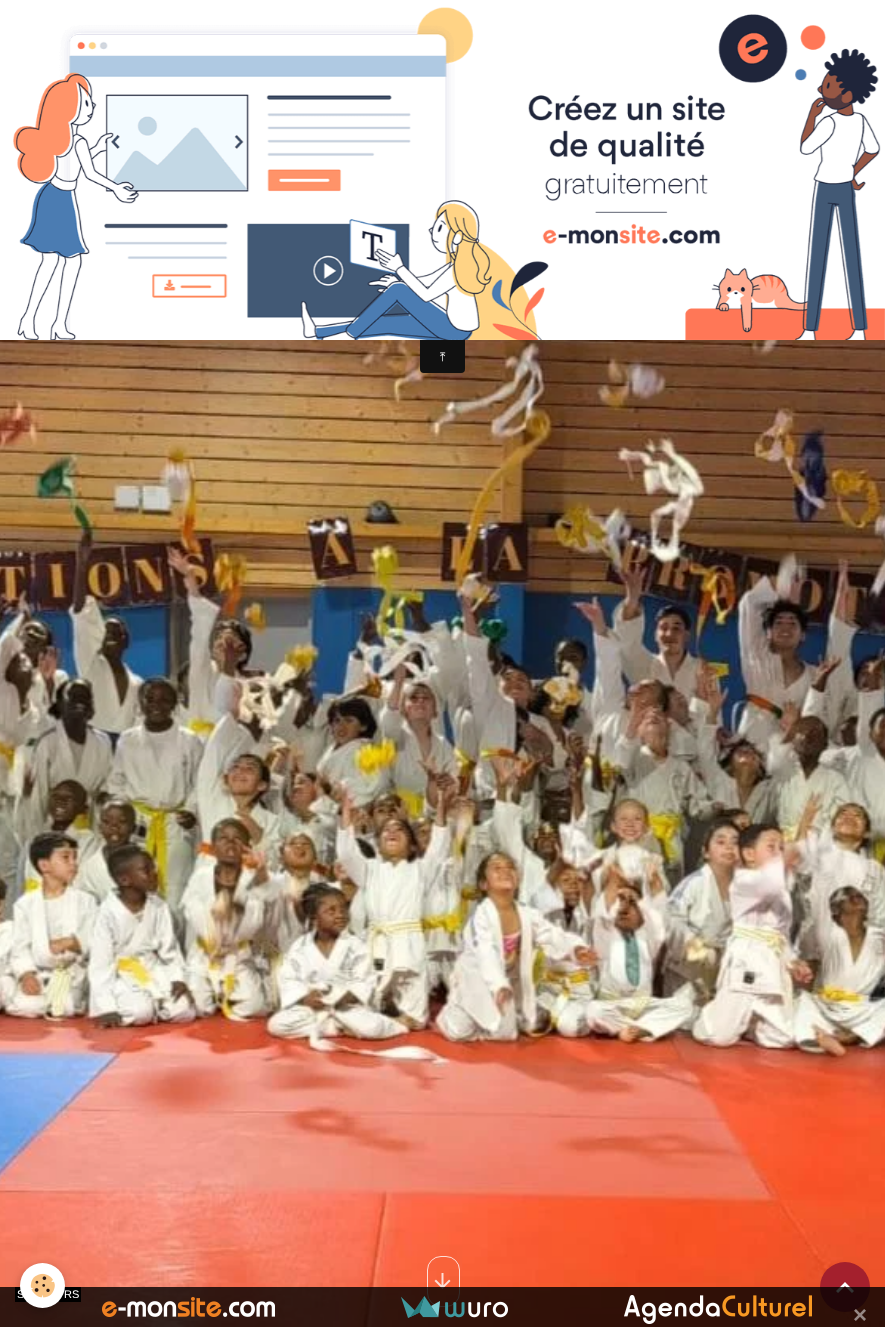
async function draw(canvas) {
  canvas.width = 885;
  canvas.height = 1327;
  const ctx = canvas.getContext('2d');
  ctx.miterLimit = 4;
  ctx.fontKerning = 'normal';
  function label(s, x, y, font, color) {
    ctx.font = font;
    ctx.fillStyle = color;
    ctx.fillText(s, x, y);
  }
  function rect(x, y, w, h, color) {
    ctx.fillStyle = color;
    ctx.fillRect(x, y, w, h);
  }
  async function image(src, x, y, w, h) {
    const img = new Image();
    img.src = src;
    await img.decode();
    ctx.drawImage(img, x, y, w, h);
  }
  let path;

  rect(0, 0, 885, 1327, '#fff');
  await image('assets/img1.png', 0, 340, 885, 987);
  ctx.beginPath();
  ctx.roundRect(427.5, 1256.5, 32, 50, 13.5);
  ctx.strokeStyle = '#ffffffcc';
  ctx.stroke();
  await image('assets/img2.png', 434, 1273, 17, 16);
  await image('assets/img3.png', 13, 7, 872, 333);
  ctx.fillStyle = '#111';
  ctx.beginPath();
  ctx.roundRect(420, 340, 45, 33, [0, 0, 4, 4]);
  ctx.fill();
  label('⤒', 440, 361, '12px FreeSerif', '#fff');
  ctx.fillStyle = '#a4202d';
  ctx.beginPath();
  ctx.arc(845, 1287, 25, 0, 2 * Math.PI);
  ctx.fill();
  ctx.fillStyle = '#fff';
  path = new Path2D('M845 1282L854 1291L852 1293L845 1286L838 1293L836 1291Z');
  ctx.fill(path);
  rect(0, 1287, 885, 40, '#000000cc');
  rect(15, 1287, 66, 15, '#000');
  ctx.fillStyle = '#0000003d';
  ctx.filter = 'blur(5px)';
  ctx.beginPath();
  ctx.roundRect(20, 1266, 45, 45, 22.5);
  ctx.fill();
  ctx.filter = 'none';
  ctx.fillStyle = '#fff';
  ctx.beginPath();
  ctx.arc(42.5, 1285.5, 22.5, 0, 2 * Math.PI);
  ctx.fill();
  await image('assets/img4.png', 30, 1273, 25, 25);
  label('S', 17, 1298, '11px Liberation Sans', '#fff');
  label('RS', 64, 1298, '11px Liberation Sans', '#fff');
  await image('assets/img5.png', 102, 1297, 173, 20);
  await image('assets/img6.png', 401, 1296, 107, 22);
  await image('assets/img7.png', 624, 1295, 188, 29);
  label('×', 853, 1323, 'bold 24px Liberation Sans', '#968884');
}

draw(document.querySelector('canvas'));
